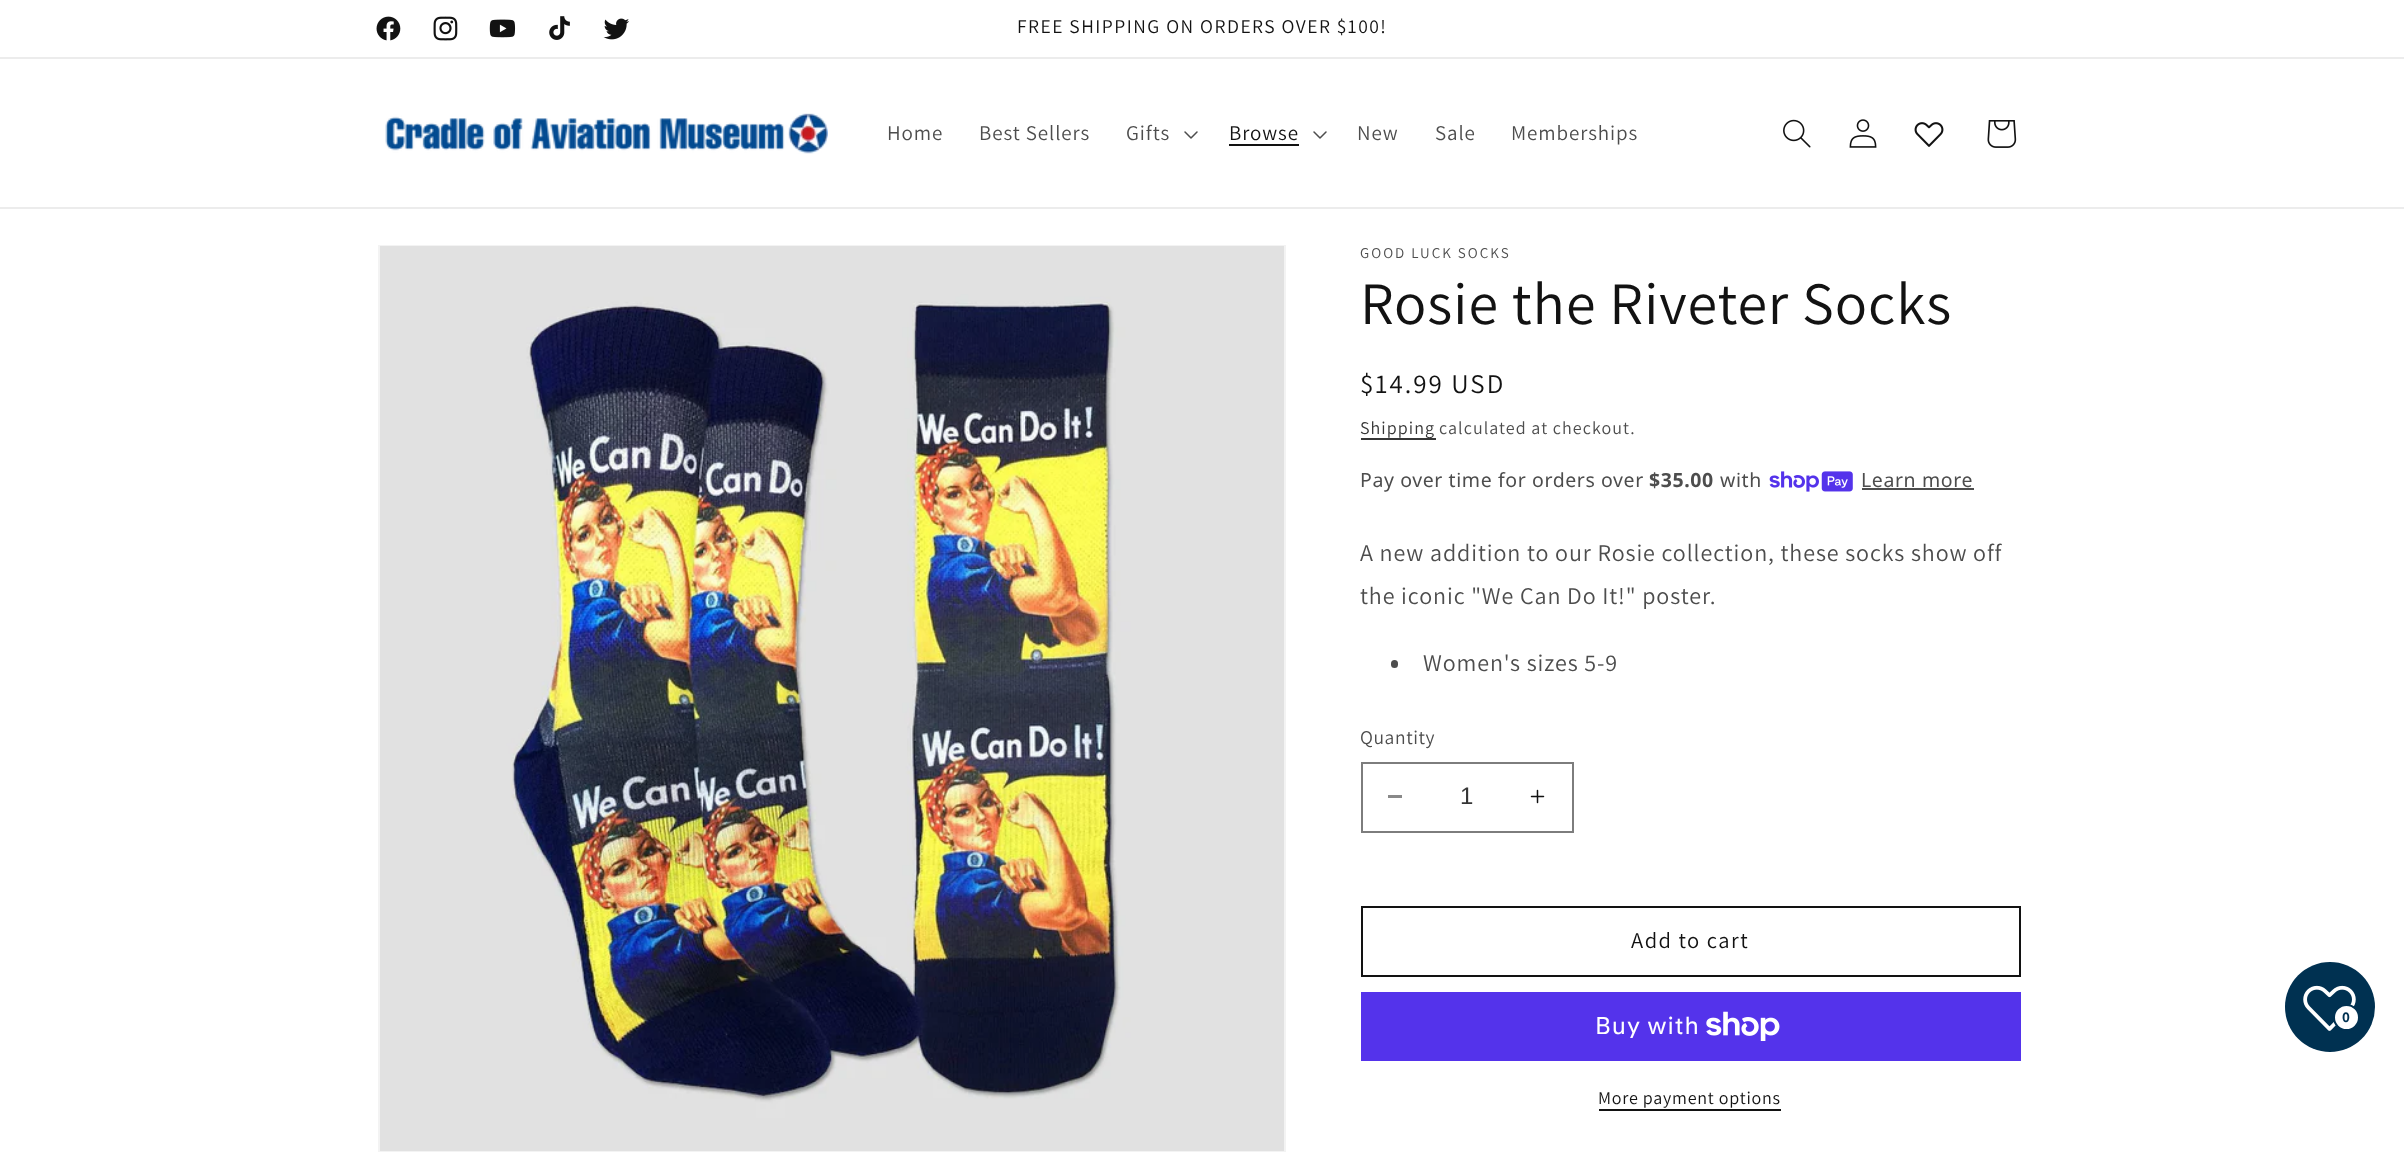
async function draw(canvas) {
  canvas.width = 2404;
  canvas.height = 1168;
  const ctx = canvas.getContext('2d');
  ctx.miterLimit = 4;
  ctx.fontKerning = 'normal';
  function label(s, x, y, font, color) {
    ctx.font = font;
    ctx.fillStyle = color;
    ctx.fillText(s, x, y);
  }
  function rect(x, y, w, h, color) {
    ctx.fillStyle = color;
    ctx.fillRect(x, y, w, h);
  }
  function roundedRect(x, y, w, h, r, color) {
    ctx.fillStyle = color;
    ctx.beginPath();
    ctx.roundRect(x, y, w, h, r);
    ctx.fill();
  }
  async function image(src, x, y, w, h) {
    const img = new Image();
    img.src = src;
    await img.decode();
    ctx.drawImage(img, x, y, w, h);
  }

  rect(0, 0, 2404, 1168, '#fff');
  rect(0, 57, 2404, 2, '#ececec');
  await image('assets/img1.png', 376, 16, 25, 25);
  await image('assets/img2.png', 433, 16, 25, 25);
  await image('assets/img3.png', 489, 19, 27, 19);
  await image('assets/img4.png', 549, 16, 21, 24);
  await image('assets/img5.png', 603, 18, 26, 22);
  ctx.letterSpacing = '1.5px';
  label('FREE SHIPPING ON ORDERS OVER $100!', 1017, 33, '19.5px Assistant', '#121212');
  rect(0, 207, 2404, 2, '#ececec');
  await image('assets/img6.png', 385, 113, 443, 41);
  ctx.letterSpacing = '0.9px';
  label('Home', 887, 140, '21px Assistant', '#4d4d4d');
  label('Best Sellers', 979, 140, '21px Assistant', '#4d4d4d');
  label('Gifts', 1126, 140, '21px Assistant', '#4d4d4d');
  await image('assets/img7.png', 1184, 131, 14, 8);
  label('Browse', 1229, 140, '21px Assistant', '#121212');
  rect(1229, 144, 70, 2, '#121212');
  await image('assets/img7.png', 1313, 131, 14, 8);
  label('New', 1357, 140, '21px Assistant', '#4d4d4d');
  label('Sale', 1435, 140, '21px Assistant', '#4d4d4d');
  label('Memberships', 1511, 140, '21px Assistant', '#4d4d4d');
  await image('assets/img8.png', 1783, 119, 28, 29);
  await image('assets/img9.png', 1849, 119, 28, 29);
  await image('assets/img10.png', 1914, 122, 30, 25);
  await image('assets/img11.png', 1987, 120, 30, 28);
  ctx.strokeStyle = '#f3f3f3';
  ctx.lineWidth = 2;
  ctx.strokeRect(379, 246, 906, 905);
  await image('assets/img12.png', 380, 246, 904, 905);
  ctx.letterSpacing = '2px';
  label('GOOD LUCK SOCKS', 1360, 258, '15px Assistant', '#4d4d4d');
  ctx.letterSpacing = '0.9px';
  label('Rosie the Riveter Socks', 1360, 324, '60px Assistant', '#121212');
  ctx.letterSpacing = '2px';
  label('$14.99 USD', 1360, 393, '27px Assistant', '#121212');
  rect(1361, 438, 75, 2, '#363636');
  ctx.letterSpacing = '1.05px';
  label('Shipping', 1360, 434, '18px Assistant', '#353535');
  label('calculated at checkout.', 1439, 434, '18px Assistant', '#4d4d4d');
  ctx.letterSpacing = '0.6px';
  label('Pay over time for orders over', 1360, 487, '19.5px Noto Sans', '#4d4d4d');
  label('$35.00', 1649, 487, 'bold 19.5px Noto Sans', '#4d4d4d');
  label('with', 1720, 487, '19.5px Noto Sans', '#4d4d4d');
  await image('assets/img13.png', 1769, 471, 84, 21);
  label('Learn more', 1861, 487, '19.5px Noto Sans', '#4d4d4d');
  rect(1862, 488, 112, 2, '#4d4d4d');
  ctx.letterSpacing = '0.9px';
  label('A new addition to our Rosie collection, these socks show off', 1360, 561, '24px Assistant', '#4d4d4d');
  label('the iconic "We Can Do It!" poster.', 1360, 604, '24px Assistant', '#4d4d4d');
  roundedRect(1391, 660, 7, 8, 3.5, '#4d4d4d');
  label('Women\'s sizes 5-9', 1423, 671, '24px Assistant', '#4d4d4d');
  ctx.letterSpacing = '0.6px';
  label('Quantity', 1360, 744, '19.5px Assistant', '#4d4d4d');
  rect(1388, 795, 14, 3, '#898989');
  await image('assets/img14.png', 1530, 789, 15, 15);
  ctx.strokeStyle = '#7d7d7d';
  ctx.strokeRect(1362, 763, 211, 69);
  ctx.letterSpacing = '0px';
  label('1', 1460, 804, '24px Liberation Sans', '#353535');
  ctx.strokeStyle = '#121212';
  ctx.strokeRect(1362, 907, 658, 69);
  ctx.letterSpacing = '1.5px';
  label('Add to cart', 1631, 948, '22.5px Assistant', '#121212');
  rect(1361, 992, 660, 69, '#5433eb');
  ctx.letterSpacing = '0.9px';
  label('Buy with', 1595, 1034, '24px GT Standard', '#fff');
  await image('assets/img15.png', 1706, 1011, 74, 30);
  ctx.letterSpacing = '0.75px';
  label('More payment options', 1598, 1104, '18px Assistant', '#121212');
  rect(1599, 1109, 182, 2, '#121212');
  ctx.fillStyle = '#003151';
  ctx.beginPath();
  ctx.arc(2330, 1007, 45, 0, 2 * Math.PI);
  ctx.fill();
  await image('assets/img16.png', 2303, 985, 53, 46);
  ctx.fillStyle = '#fff';
  ctx.beginPath();
  ctx.arc(2346.5, 1017.5, 12.5, 0, 2 * Math.PI);
  ctx.fill();
  ctx.strokeStyle = '#003151';
  ctx.stroke();
  ctx.letterSpacing = '0.9px';
  label('0', 2342, 1022, 'bold 15px Assistant', '#003151');
}

draw(document.querySelector('canvas'));
